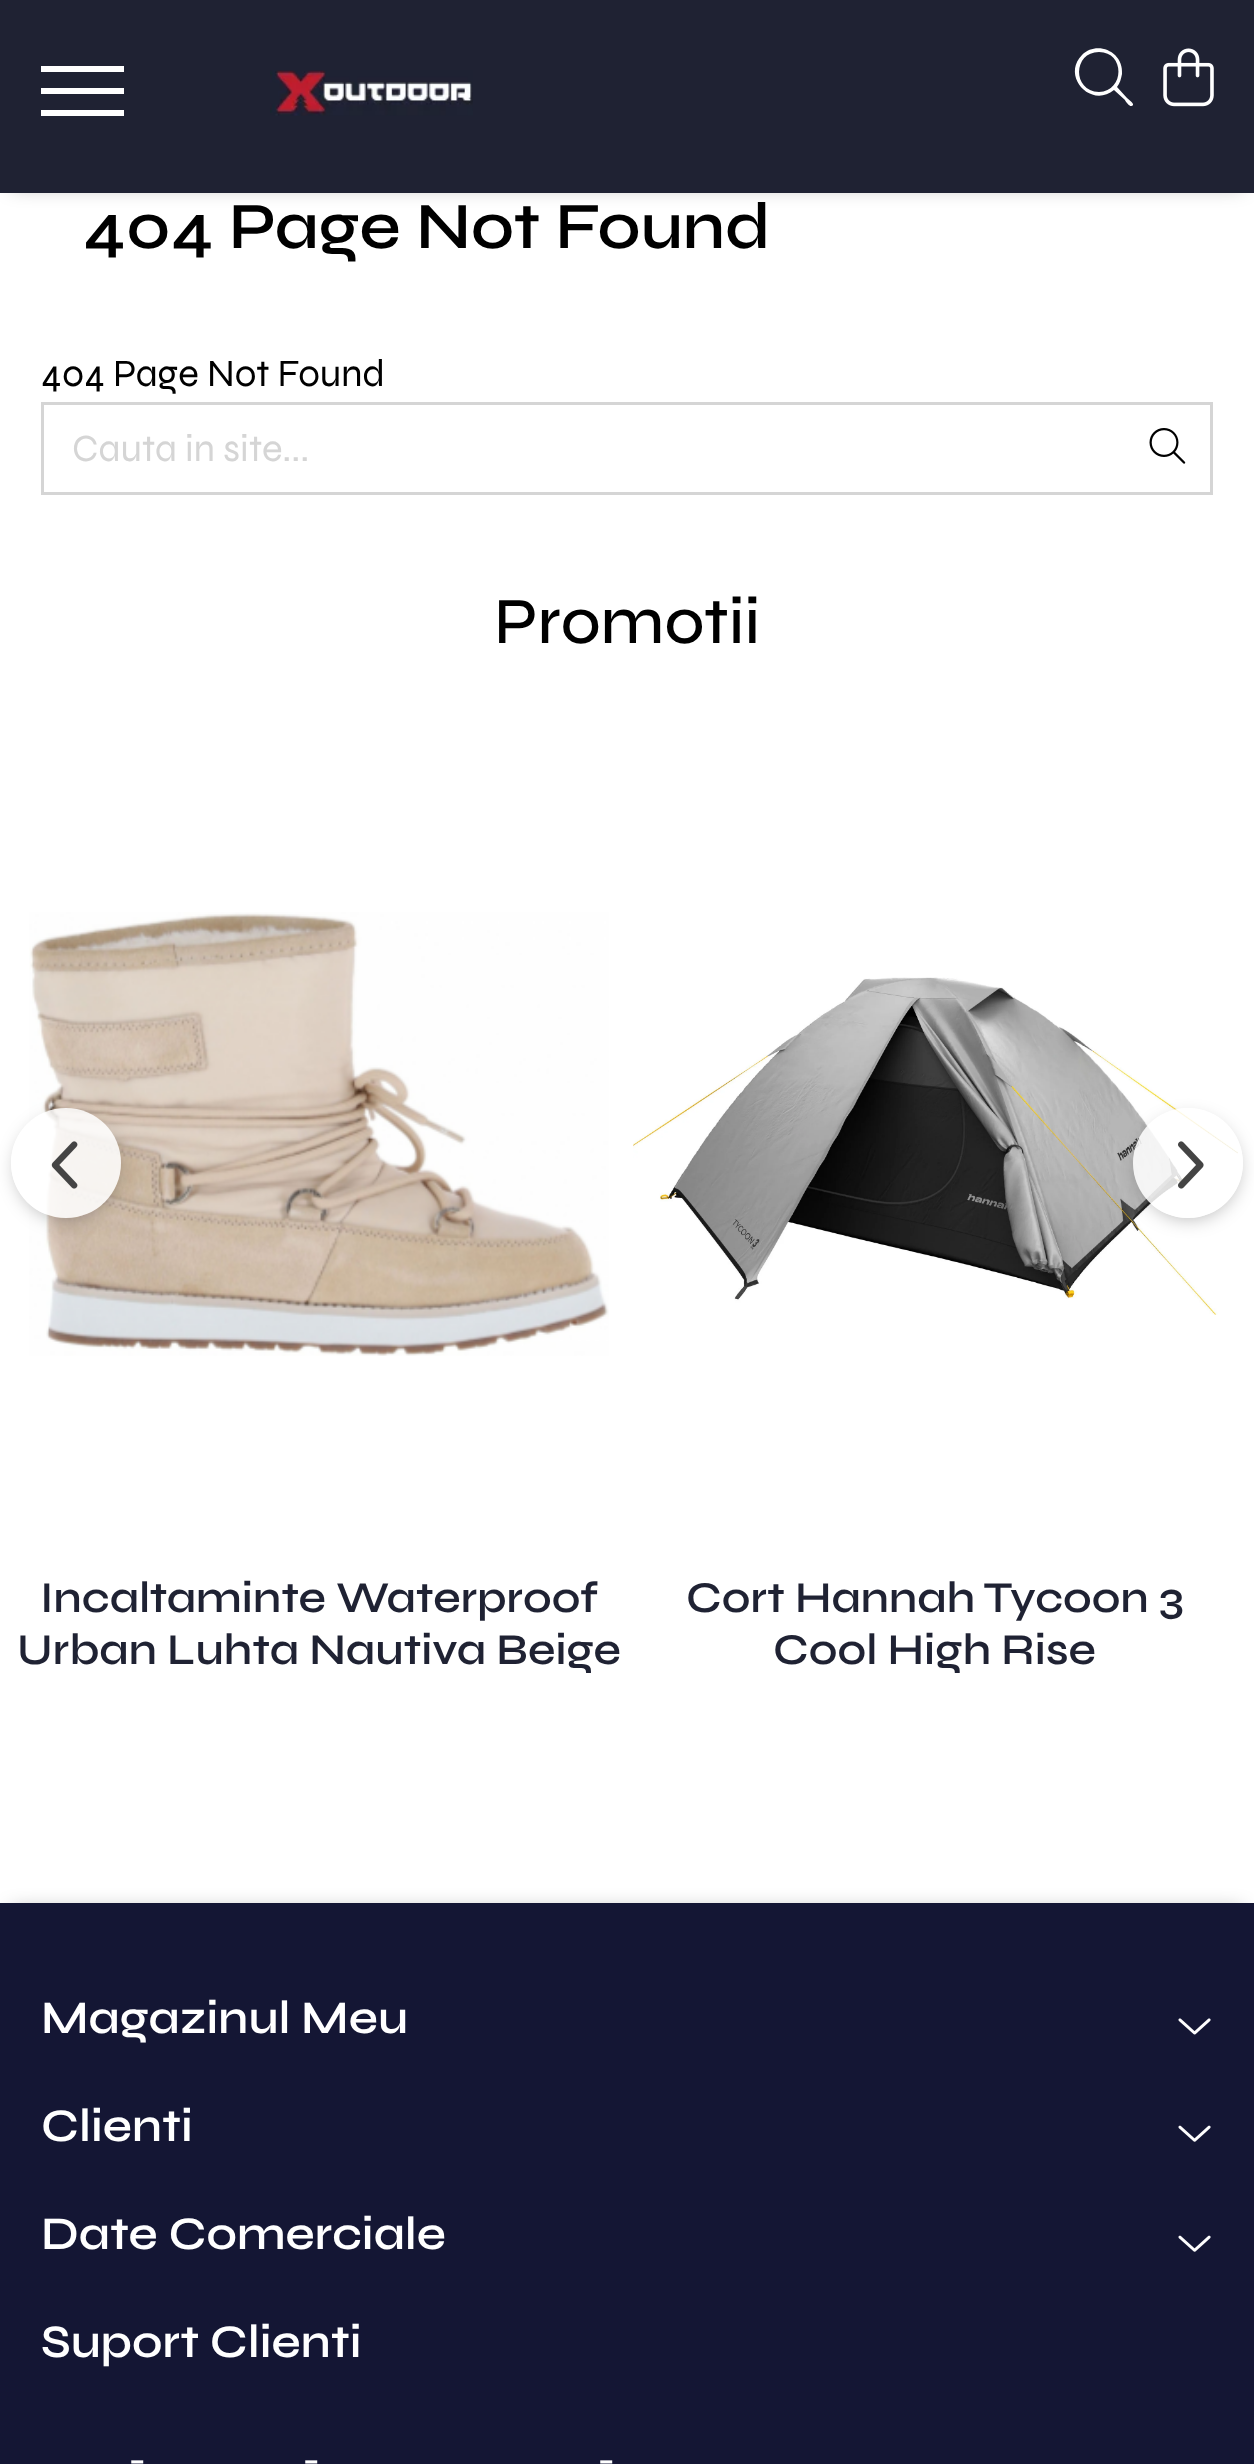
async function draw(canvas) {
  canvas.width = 1254;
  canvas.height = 2464;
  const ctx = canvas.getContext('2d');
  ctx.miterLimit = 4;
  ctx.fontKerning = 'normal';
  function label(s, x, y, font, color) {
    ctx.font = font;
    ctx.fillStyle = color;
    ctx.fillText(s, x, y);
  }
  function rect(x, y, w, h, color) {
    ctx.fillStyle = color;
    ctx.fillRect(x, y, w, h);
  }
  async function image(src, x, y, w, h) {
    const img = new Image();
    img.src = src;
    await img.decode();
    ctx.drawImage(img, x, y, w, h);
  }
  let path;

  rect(0, 0, 1254, 2464, '#fff');
  ctx.fillStyle = '#0000004d';
  ctx.filter = 'blur(9.5px)';
  ctx.beginPath();
  ctx.rect(11, 17, 1232, 170);
  ctx.fill();
  ctx.filter = 'none';
  rect(0, 0, 1254, 193, '#1f2233');
  rect(41, 88, 83, 6, '#fff');
  rect(41, 66, 83, 6, '#fff');
  rect(41, 110, 83, 6, '#fff');
  await image('assets/img1.png', 270, 70, 203, 46);
  path = new Path2D('M1117 87C1120 83 1121 79 1122 74C1124 52 1097 40 1082 55C1061 76 1091 109 1114 90L1125 100C1125 101 1131 109 1133 105C1134 103 1128 99 1127 98ZM1099 92C1072 91 1073 52 1099 52C1125 52 1125 91 1099 92Z');
  ctx.fill(path);
  await image('assets/img2.png', 1163, 48, 51, 59);
  label('404 Page Not Found', 83, 248, '600 66px Syne', '#000');
  label('404 Page Not Found', 41, 386, '38.5px Syne', '#000');
  ctx.strokeStyle = '#d5d5d5';
  ctx.lineWidth = 3;
  ctx.strokeRect(42.5, 403.5, 1169, 90);
  label('Cauta in site...', 72, 461, '38.5px Syne', '#d5d5d5');
  await image('assets/img3.png', 1149, 428, 37, 36);
  label('Promotii', 494, 643, '500 66px Syne', '#000');
  await image('assets/img6.png', 29, 912, 580, 444);
  ctx.save();
  path = new Path2D('M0 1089H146V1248H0ZM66 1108C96.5 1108 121 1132.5 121 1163C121 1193.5 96.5 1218 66 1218C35.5 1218 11 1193.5 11 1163C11 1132.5 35.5 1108 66 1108Z');
  ctx.clip(path, 'evenodd');
  ctx.fillStyle = '#0000004d';
  ctx.filter = 'blur(9.5px)';
  ctx.beginPath();
  ctx.roundRect(17, 1119, 99, 99, 49.5);
  ctx.fill();
  ctx.filter = 'none';
  ctx.restore();
  ctx.fillStyle = '#ffffffd9';
  ctx.beginPath();
  ctx.arc(66, 1163, 55, 0, 2 * Math.PI);
  ctx.fill();
  await image('assets/img4.png', 51, 1141, 27, 48);
  await image('assets/img7.png', 633, 977, 605, 338);
  ctx.save();
  path = new Path2D('M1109 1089H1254V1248H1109ZM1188 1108C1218.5 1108 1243 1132.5 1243 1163C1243 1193.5 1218.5 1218 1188 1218C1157.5 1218 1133 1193.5 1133 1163C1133 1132.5 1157.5 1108 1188 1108Z');
  ctx.clip(path, 'evenodd');
  ctx.fillStyle = '#0000004d';
  ctx.filter = 'blur(9.5px)';
  ctx.beginPath();
  ctx.roundRect(1139, 1119, 99, 99, 49.5);
  ctx.fill();
  ctx.filter = 'none';
  ctx.restore();
  ctx.beginPath();
  ctx.arc(1188, 1163, 55, 0, 2 * Math.PI);
  ctx.fill();
  await image('assets/img5.png', 1178, 1141, 26, 48);
  label('Incaltaminte Waterproof', 40, 1612, '600 44px Syne', '#1f2233');
  label('Urban Luhta Nautiva Beige', 17, 1664, '600 44px Syne', '#1f2233');
  label('Cort Hannah Tycoon 3', 686, 1612, '600 44px Syne', '#1f2233');
  label('Cool High Rise', 773, 1664, '600 44px Syne', '#1f2233');
  ctx.fillStyle = '#0000004d';
  ctx.filter = 'blur(9.5px)';
  ctx.beginPath();
  ctx.rect(11, 1909, 1232, 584);
  ctx.fill();
  ctx.filter = 'none';
  rect(0, 1903, 1254, 561, '#141634');
  label('Magazinul Meu', 41, 2033, '600 46.75px Syne', '#fff');
  await image('assets/img8.png', 1178, 2018, 33, 17);
  label('Clienti', 41, 2141, '600 46.75px Syne', '#fff');
  await image('assets/img9.png', 1178, 2125, 33, 17);
  label('Date Comerciale', 41, 2249, '600 46.75px Syne', '#fff');
  await image('assets/img9.png', 1178, 2235, 33, 17);
  label('Suport Clienti', 41, 2357, '600 46.75px Syne', '#fff');
  label('-', 128, 2473, '41px Syne', '#fff');
  label('-', 302, 2473, '41px Syne', '#fff');
  label('-', 597, 2473, '41px Syne', '#fff');
}

draw(document.querySelector('canvas'));
